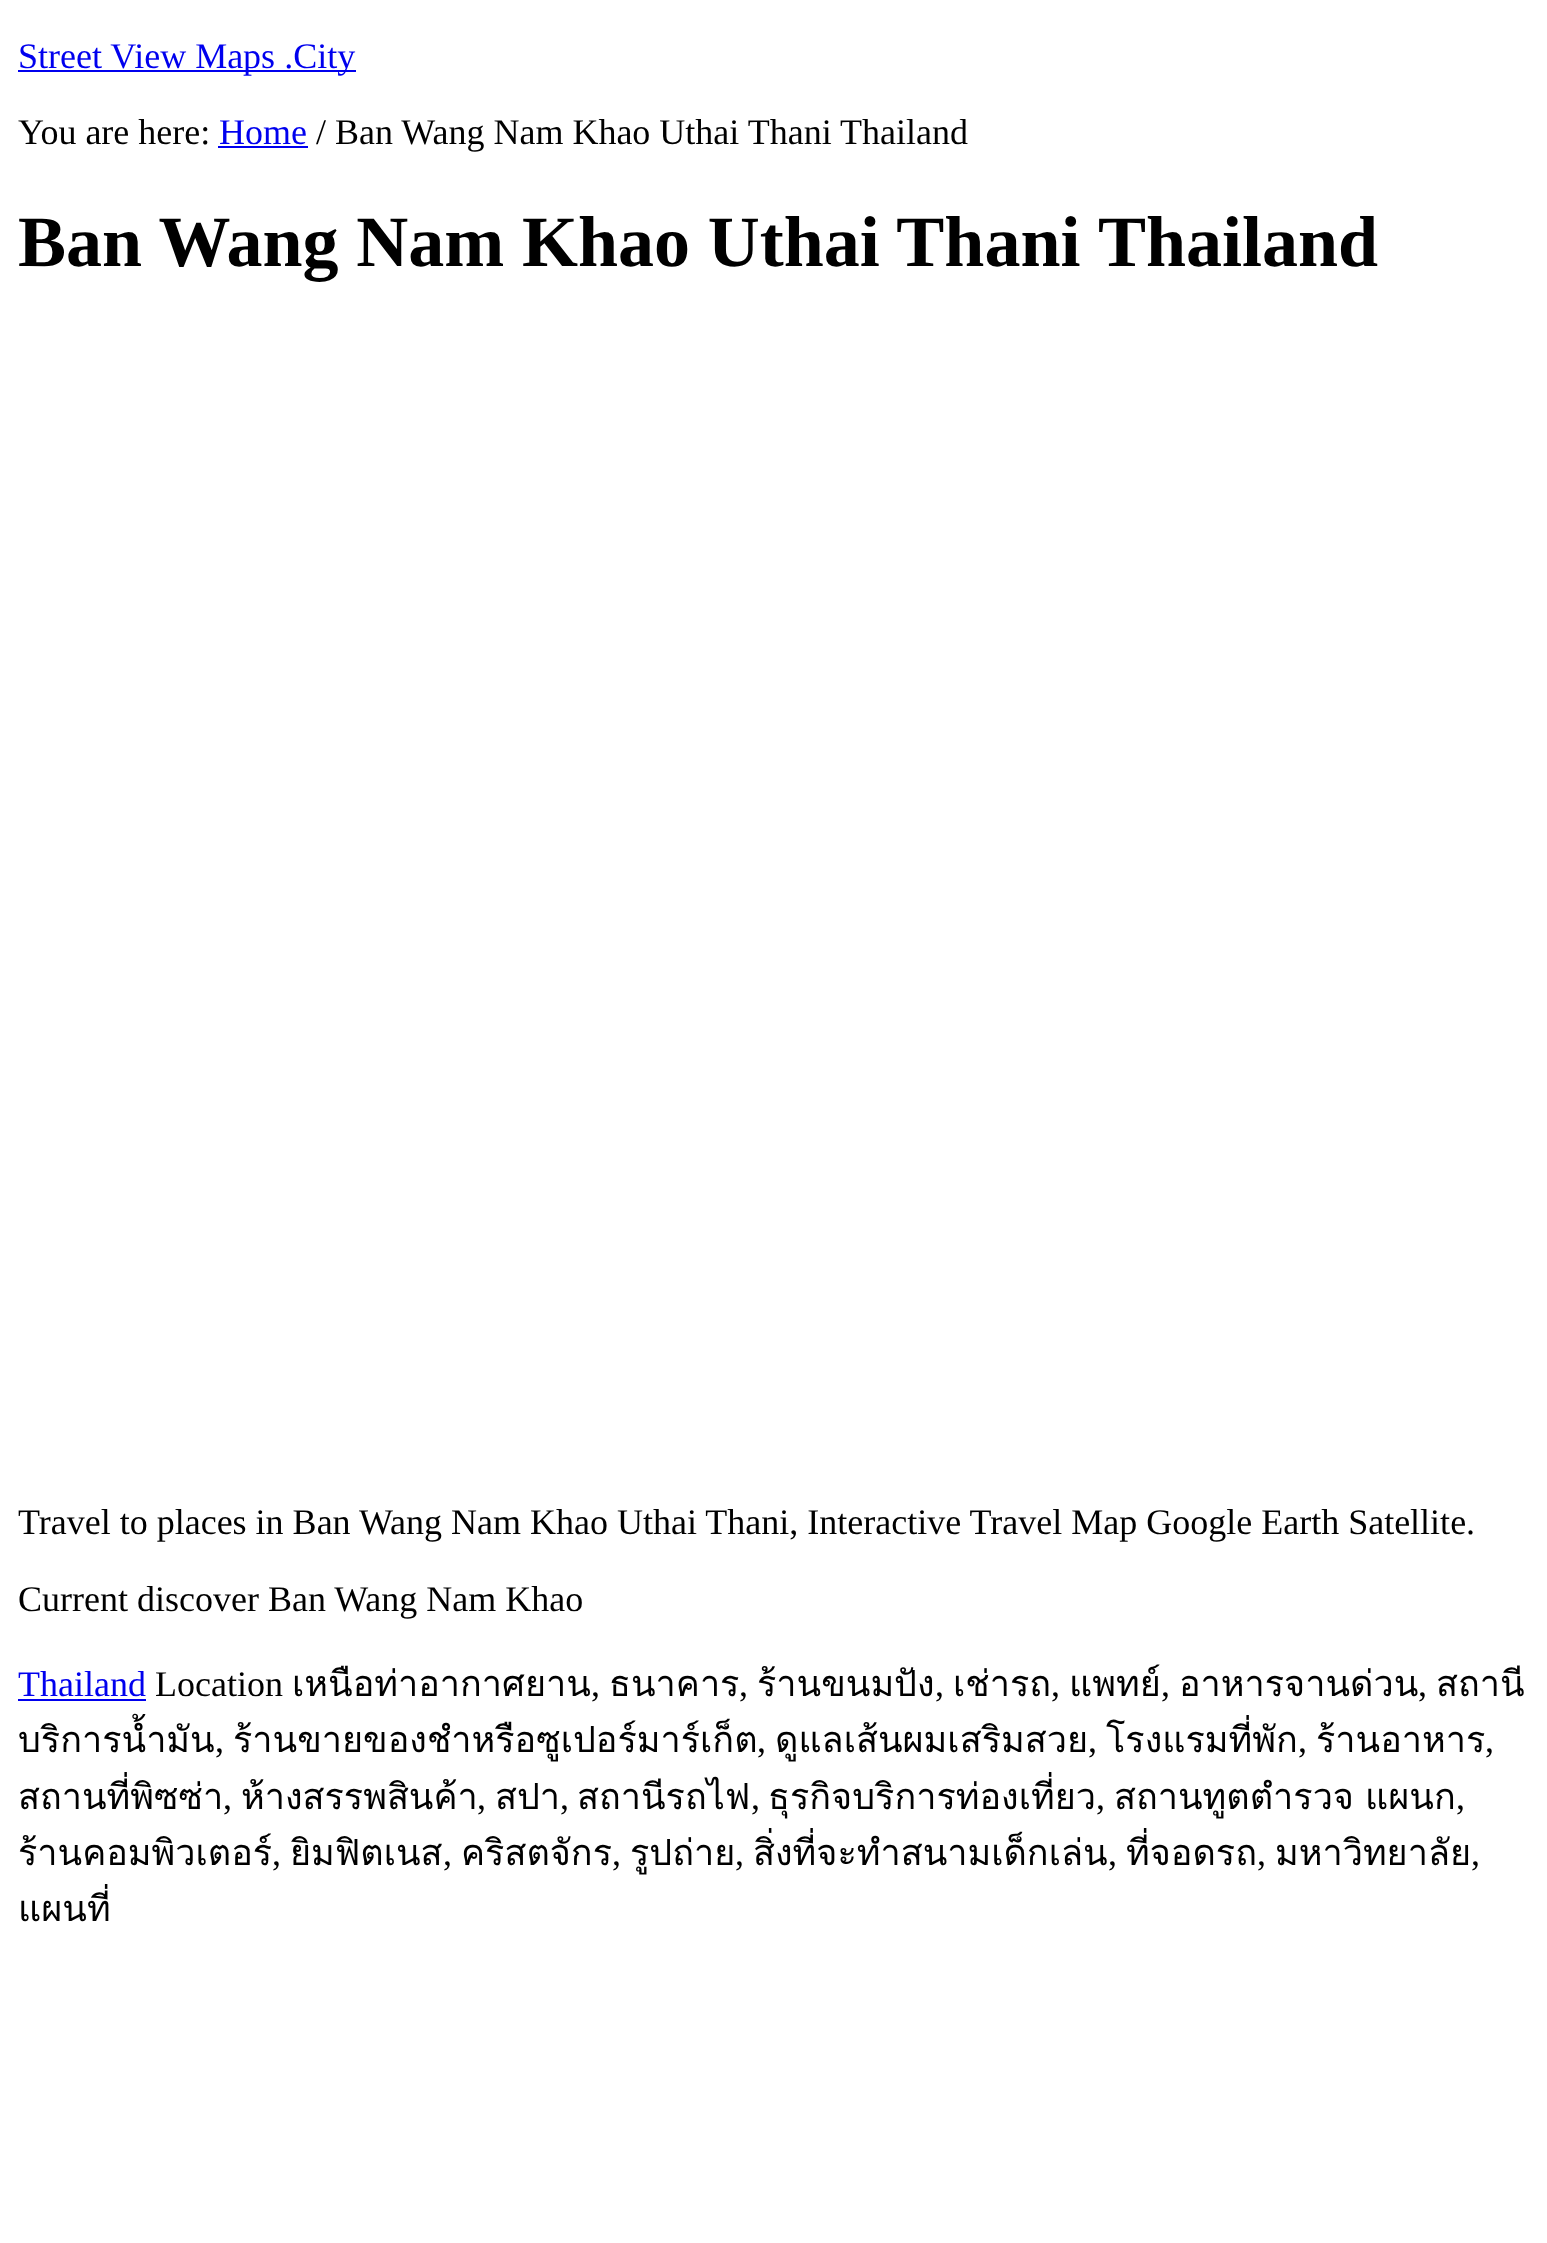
async function draw(canvas) {
  canvas.width = 1547;
  canvas.height = 2243;
  const ctx = canvas.getContext('2d');
  ctx.miterLimit = 4;
  ctx.fontKerning = 'normal';
  function label(s, x, y, font, color) {
    ctx.font = font;
    ctx.fillStyle = color;
    ctx.fillText(s, x, y);
  }
  function rect(x, y, w, h, color) {
    ctx.fillStyle = color;
    ctx.fillRect(x, y, w, h);
  }

  rect(0, 0, 1547, 2243, '#fff');
  rect(18, 70, 338, 2, '#00e');
  label('Street View Maps .City', 18, 68, '36px Liberation Serif', '#00e');
  label('You are here:', 18, 144, '36px Liberation Serif', '#000');
  label('Home', 219, 144, '36px Liberation Serif', '#00e');
  rect(218, 146, 90, 2, '#00e');
  label('/ Ban Wang Nam Khao Uthai Thani', 316, 144, '36px Liberation Serif', '#000');
  label('Thailand', 840, 144, '36px Liberation Serif', '#000');
  ctx.wordSpacing = '-0.25px';
  label('Ban Wang Nam Khao Uthai Thani', 18, 266, 'bold 72px Liberation Serif', '#000');
  ctx.wordSpacing = '0px';
  label('Thailand', 1098, 266, 'bold 72px Liberation Serif', '#000');
  label('Travel to places in Ban Wang Nam Khao Uthai Thani, Interactive Travel Map Google Earth Satellite.', 18, 1534, '36px Liberation Serif', '#000');
  label('Current discover Ban Wang Nam Khao', 18, 1611, '36px Liberation Serif', '#000');
  label('Thailand', 18, 1696, '36px Liberation Serif', '#00e');
  rect(18, 1699, 128, 2, '#00e');
  label('Location', 155, 1696, '36px Liberation Serif', '#000');
  label('เหนือท่าอากาศยาน', 292, 1696, '36px Loma', '#000');
  label(',', 591, 1696, '36px Liberation Serif', '#000');
  label('ธนาคาร', 609, 1696, '36px Loma', '#000');
  label(',', 739, 1696, '36px Liberation Serif', '#000');
  label('ร้านขนมปัง', 757, 1696, '36px Loma', '#000');
  label('เช่ารถ', 953, 1696, '36px Loma', '#000');
  label('แพทย์', 1069, 1696, '36px Loma', '#000');
  label('อาหารจานด่วน', 1179, 1696, '36px Loma', '#000');
  label('สถานี', 1436, 1696, '36px Loma', '#000');
  label(',', 935, 1696, '36px Liberation Serif', '#000');
  label(',', 1051, 1696, '36px Liberation Serif', '#000');
  label(',', 1161, 1696, '36px Liberation Serif', '#000');
  label(',', 1418, 1696, '36px Liberation Serif', '#000');
  label('บริการน้ำมัน', 18, 1752, '36px Loma', '#000');
  label(',', 215, 1752, '36px Liberation Serif', '#000');
  label('ร้านขายของชำหรือซูเปอร์มาร์เก็ต', 233, 1752, '36px Loma', '#000');
  label(',', 757, 1752, '36px Liberation Serif', '#000');
  label('ดูแลเส้นผมเสริมสวย', 775, 1752, '36px Loma', '#000');
  label('โรงแรมที่พัก', 1106, 1752, '36px Loma', '#000');
  label(',', 1298, 1752, '36px Liberation Serif', '#000');
  label('ร้านอาหาร', 1316, 1752, '36px Loma', '#000');
  label(',', 1088, 1752, '36px Liberation Serif', '#000');
  label(',', 1485, 1752, '36px Liberation Serif', '#000');
  label('สถานที่พิซซ่า', 18, 1809, '36px Loma', '#000');
  label(',', 223, 1809, '36px Liberation Serif', '#000');
  label('ห้างสรรพสินค้า', 241, 1809, '36px Loma', '#000');
  label('สปา', 495, 1809, '36px Loma', '#000');
  label('สถานีรถไฟ', 577, 1809, '36px Loma', '#000');
  label('ธุรกิจบริการท่องเที่ยว', 768, 1809, '36px Loma', '#000');
  ctx.wordSpacing = '-1px';
  label('สถานทูตตำรวจ แผนก', 1114, 1809, '36px Loma', '#000');
  ctx.wordSpacing = '0px';
  label(',', 477, 1809, '36px Liberation Serif', '#000');
  label(',', 560, 1809, '36px Liberation Serif', '#000');
  label(',', 751, 1809, '36px Liberation Serif', '#000');
  label(',', 1096, 1809, '36px Liberation Serif', '#000');
  label(',', 1456, 1809, '36px Liberation Serif', '#000');
  label('ร้านคอมพิวเตอร์', 18, 1865, '36px Loma', '#000');
  label(',', 272, 1865, '36px Liberation Serif', '#000');
  label('ยิมฟิตเนส', 290, 1865, '36px Loma', '#000');
  label('คริสตจักร', 461, 1865, '36px Loma', '#000');
  label(',', 612, 1865, '36px Liberation Serif', '#000');
  label('รูปถ่าย', 630, 1865, '36px Loma', '#000');
  label(',', 735, 1865, '36px Liberation Serif', '#000');
  label('สิ่งที่จะทำสนามเด็กเล่น', 753, 1865, '36px Loma', '#000');
  label(',', 1108, 1865, '36px Liberation Serif', '#000');
  label('ที่จอดรถ', 1126, 1865, '36px Loma', '#000');
  label('มหาวิทยาลัย', 1275, 1865, '36px Loma', '#000');
  label(',', 443, 1865, '36px Liberation Serif', '#000');
  label(',', 1257, 1865, '36px Liberation Serif', '#000');
  label(',', 1471, 1865, '36px Liberation Serif', '#000');
  label('แผนที่', 18, 1921, '36px Loma', '#000');
}

draw(document.querySelector('canvas'));
